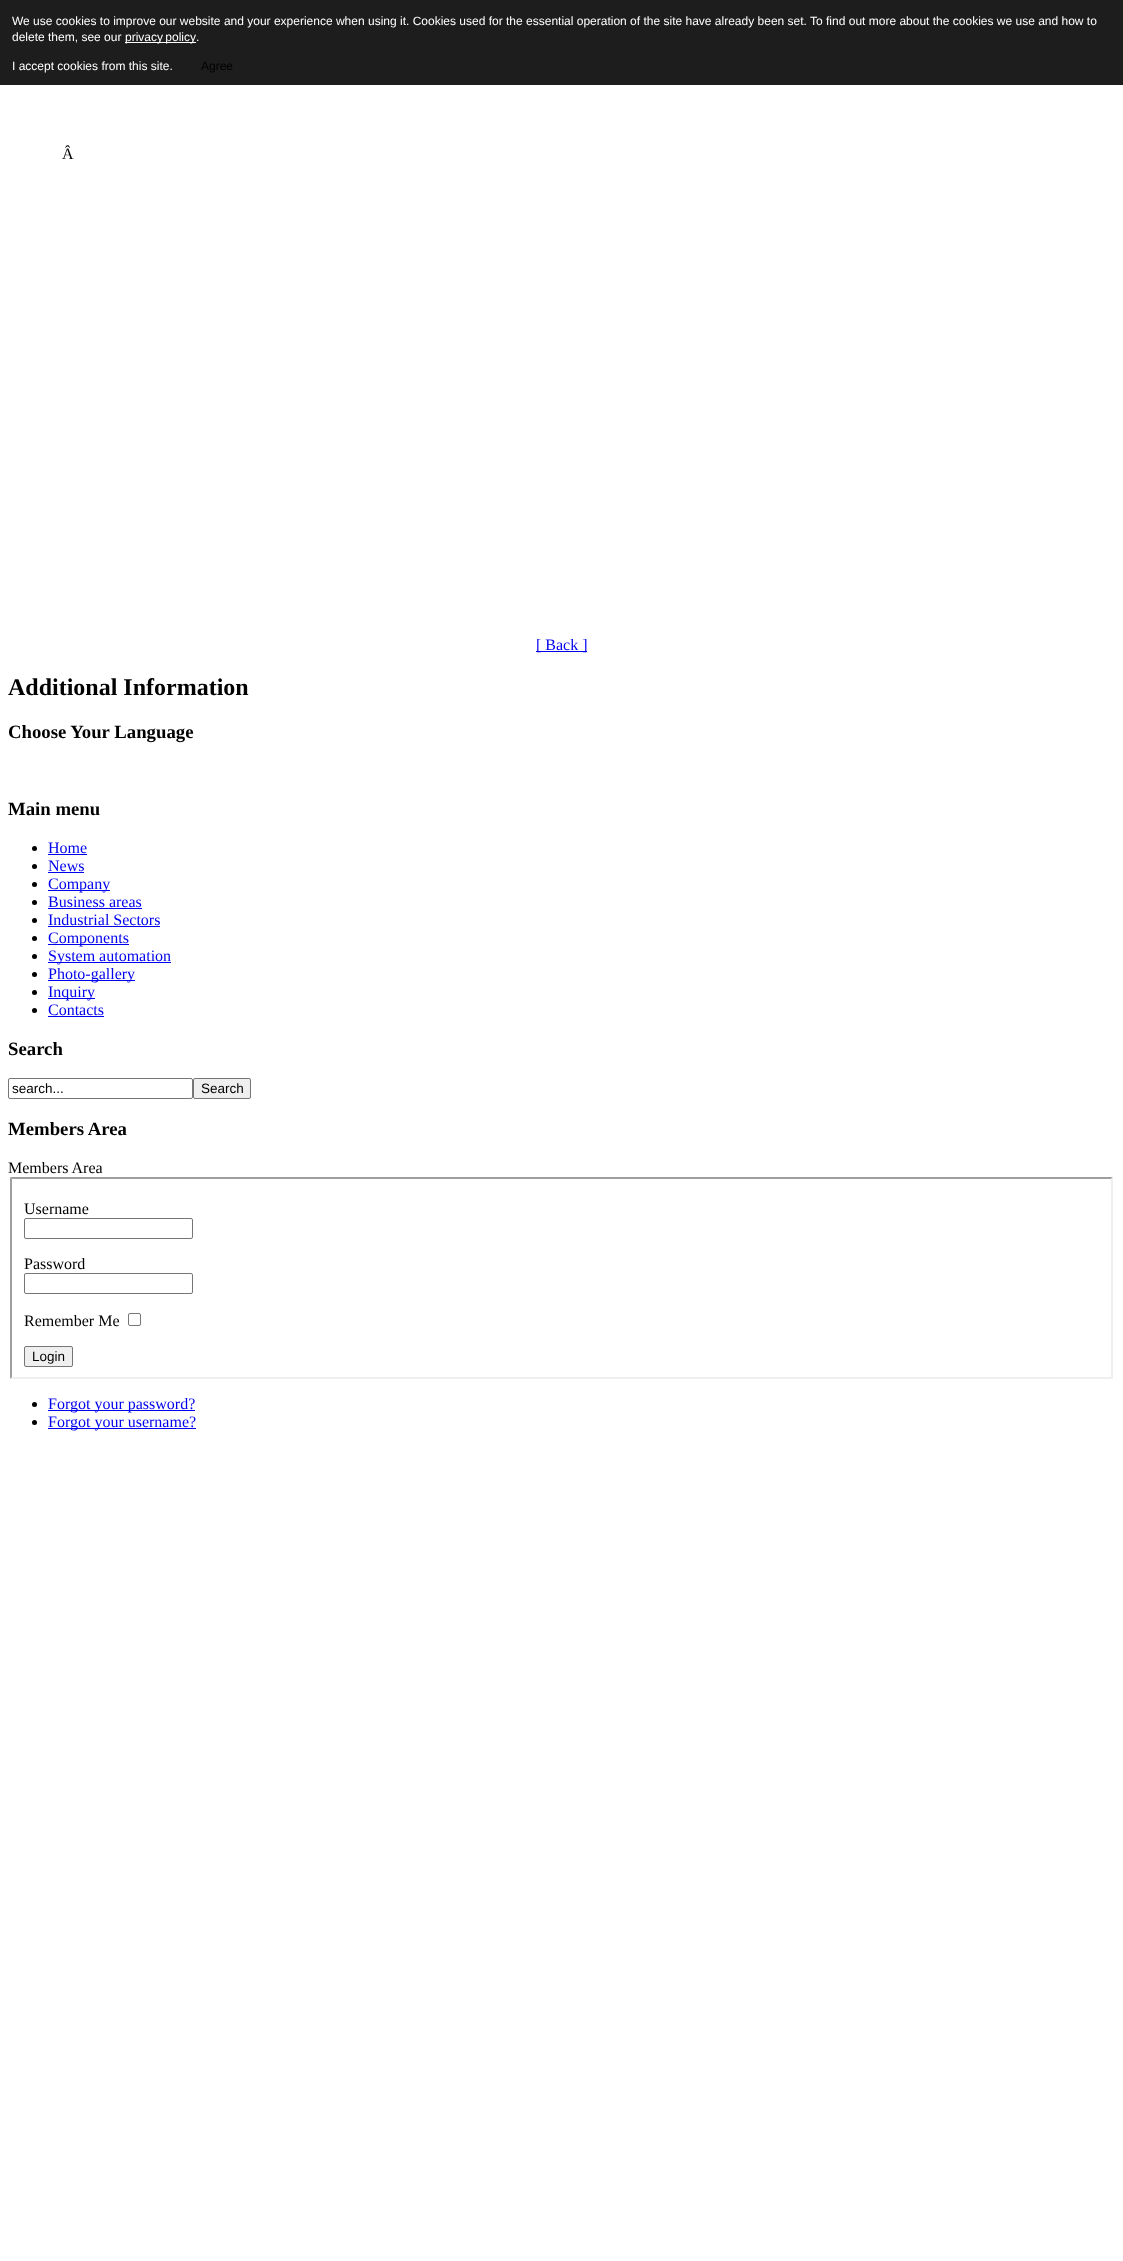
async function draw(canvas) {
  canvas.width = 1123;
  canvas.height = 2261;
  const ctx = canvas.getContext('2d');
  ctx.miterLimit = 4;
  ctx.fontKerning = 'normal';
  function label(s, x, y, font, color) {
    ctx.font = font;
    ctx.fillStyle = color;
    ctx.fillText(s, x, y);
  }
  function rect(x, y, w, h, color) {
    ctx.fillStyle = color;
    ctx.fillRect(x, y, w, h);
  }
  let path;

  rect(0, 0, 1123, 2261, '#fff');
  rect(0, 0, 1123, 85, '#1d1d1d');
  label('We use cookies to improve our website and your experience when using it. Cookies used for the essential operation of the site have already been set. To find out more about the cookies we use and how to', 12, 25, '12px Liberation Sans', '#fff');
  label('delete them, see our', 12, 41, '12px Liberation Sans', '#fff');
  rect(125, 42, 71, 1, '#fff');
  ctx.wordSpacing = '-1px';
  label('privacy policy', 125, 41, '12px Liberation Sans', '#fff');
  ctx.wordSpacing = '0px';
  label('.', 196, 41, '12px Liberation Sans', '#fff');
  label('I accept cookies from this site.', 12, 70, '12px Liberation Sans', '#fff');
  label('Agree', 201, 70, '12px Liberation Sans', '#000');
  label('Â', 62, 159, '16px Liberation Serif', '#000');
  rect(536, 651, 51, 1, '#00e');
  label('[ Back ]', 536, 650, '16px Liberation Serif', '#00e');
  label('Additional Information', 8, 695, 'bold 24px Liberation Serif', '#000');
  label('Choose Your Language', 8, 738, 'bold 18.75px Liberation Serif', '#000');
  label('Main menu', 8, 815, 'bold 18.75px Liberation Serif', '#000');
  ctx.beginPath();
  ctx.arc(34.5, 848.5, 2.5, 0, 2 * Math.PI);
  ctx.fill();
  label('Home', 48, 853, '16px Liberation Serif', '#00e');
  rect(48, 854, 39, 1, '#00e');
  ctx.fillStyle = '#000';
  ctx.beginPath();
  ctx.arc(34.5, 866.5, 2.5, 0, 2 * Math.PI);
  ctx.fill();
  label('News', 48, 871, '16px Liberation Serif', '#00e');
  rect(48, 872, 36, 1, '#00e');
  ctx.fillStyle = '#000';
  ctx.beginPath();
  ctx.arc(34.5, 884.5, 2.5, 0, 2 * Math.PI);
  ctx.fill();
  rect(48, 890, 62, 1, '#00e');
  label('Company', 48, 889, '16px Liberation Serif', '#00e');
  ctx.fillStyle = '#000';
  ctx.beginPath();
  ctx.arc(34.5, 902.5, 2.5, 0, 2 * Math.PI);
  ctx.fill();
  label('Business areas', 48, 907, '16px Liberation Serif', '#00e');
  rect(48, 908, 94, 1, '#00e');
  ctx.fillStyle = '#000';
  ctx.beginPath();
  ctx.arc(34.5, 920.5, 2.5, 0, 2 * Math.PI);
  ctx.fill();
  label('Industrial Sectors', 48, 925, '16px Liberation Serif', '#00e');
  rect(48, 926, 112, 1, '#00e');
  ctx.fillStyle = '#000';
  ctx.beginPath();
  ctx.arc(34.5, 938.5, 2.5, 0, 2 * Math.PI);
  ctx.fill();
  rect(48, 944, 81, 1, '#00e');
  label('Components', 48, 943, '16px Liberation Serif', '#00e');
  ctx.fillStyle = '#000';
  ctx.beginPath();
  ctx.arc(34.5, 956.5, 2.5, 0, 2 * Math.PI);
  ctx.fill();
  rect(48, 962, 123, 1, '#00e');
  label('System automation', 48, 961, '16px Liberation Serif', '#00e');
  ctx.fillStyle = '#000';
  ctx.beginPath();
  ctx.arc(34.5, 974.5, 2.5, 0, 2 * Math.PI);
  ctx.fill();
  rect(48, 980, 87, 1, '#00e');
  label('Photo-gallery', 48, 979, '16px Liberation Serif', '#00e');
  ctx.fillStyle = '#000';
  ctx.beginPath();
  ctx.arc(34.5, 992.5, 2.5, 0, 2 * Math.PI);
  ctx.fill();
  rect(48, 998, 47, 1, '#00e');
  label('Inquiry', 48, 997, '16px Liberation Serif', '#00e');
  ctx.fillStyle = '#000';
  ctx.beginPath();
  ctx.arc(34.5, 1010.5, 2.5, 0, 2 * Math.PI);
  ctx.fill();
  label('Contacts', 48, 1015, '16px Liberation Serif', '#00e');
  rect(48, 1016, 56, 1, '#00e');
  label('Search', 8, 1055, 'bold 18.75px Liberation Serif', '#000');
  ctx.beginPath();
  ctx.roundRect(8.5, 1078.5, 184, 20, 1.5);
  ctx.strokeStyle = '#767676';
  ctx.stroke();
  label('search...', 12, 1093, '13.5px Liberation Sans', '#000');
  ctx.fillStyle = '#efefef';
  ctx.beginPath();
  ctx.roundRect(193.5, 1078.5, 57, 20, 1.5);
  ctx.fill();
  ctx.stroke();
  label('Search', 201, 1093, '13.5px Liberation Sans', '#000');
  label('Members Area', 8, 1135, 'bold 18.75px Liberation Serif', '#000');
  label('Members Area', 8, 1173, '16px Liberation Serif', '#000');
  ctx.fillStyle = '#9f9f9f';
  path = new Path2D('M10 1177H1113L1111 1179H12Z');
  ctx.fill(path);
  ctx.fillStyle = '#efefef';
  path = new Path2D('M1113 1177V1379L1111 1377V1179Z');
  ctx.fill(path);
  path = new Path2D('M1113 1379H10L12 1377H1111Z');
  ctx.fill(path);
  ctx.fillStyle = '#9f9f9f';
  path = new Path2D('M10 1379V1177L12 1179V1377Z');
  ctx.fill(path);
  label('Username', 24, 1214, '16px Liberation Serif', '#000');
  ctx.beginPath();
  ctx.roundRect(24.5, 1218.5, 168, 20, 1.5);
  ctx.stroke();
  label('Password', 24, 1269, '16px Liberation Serif', '#000');
  ctx.beginPath();
  ctx.roundRect(24.5, 1273.5, 168, 20, 1.5);
  ctx.stroke();
  label('Remember Me', 24, 1326, '16px Liberation Serif', '#000');
  ctx.beginPath();
  ctx.roundRect(128.5, 1313.5, 12, 12, 1.5);
  ctx.stroke();
  ctx.fillStyle = '#efefef';
  ctx.beginPath();
  ctx.roundRect(24.5, 1346.5, 48, 20, 1.5);
  ctx.fill();
  ctx.stroke();
  label('Login', 32, 1361, '13.5px Liberation Sans', '#000');
  ctx.beginPath();
  ctx.arc(34.5, 1404.5, 2.5, 0, 2 * Math.PI);
  ctx.fill();
  rect(48, 1410, 147, 1, '#00e');
  label('Forgot your password?', 48, 1409, '16px Liberation Serif', '#00e');
  ctx.fillStyle = '#000';
  ctx.beginPath();
  ctx.arc(34.5, 1422.5, 2.5, 0, 2 * Math.PI);
  ctx.fill();
  rect(48, 1428, 148, 1, '#00e');
  label('Forgot your username?', 48, 1427, '16px Liberation Serif', '#00e');
}

draw(document.querySelector('canvas'));
